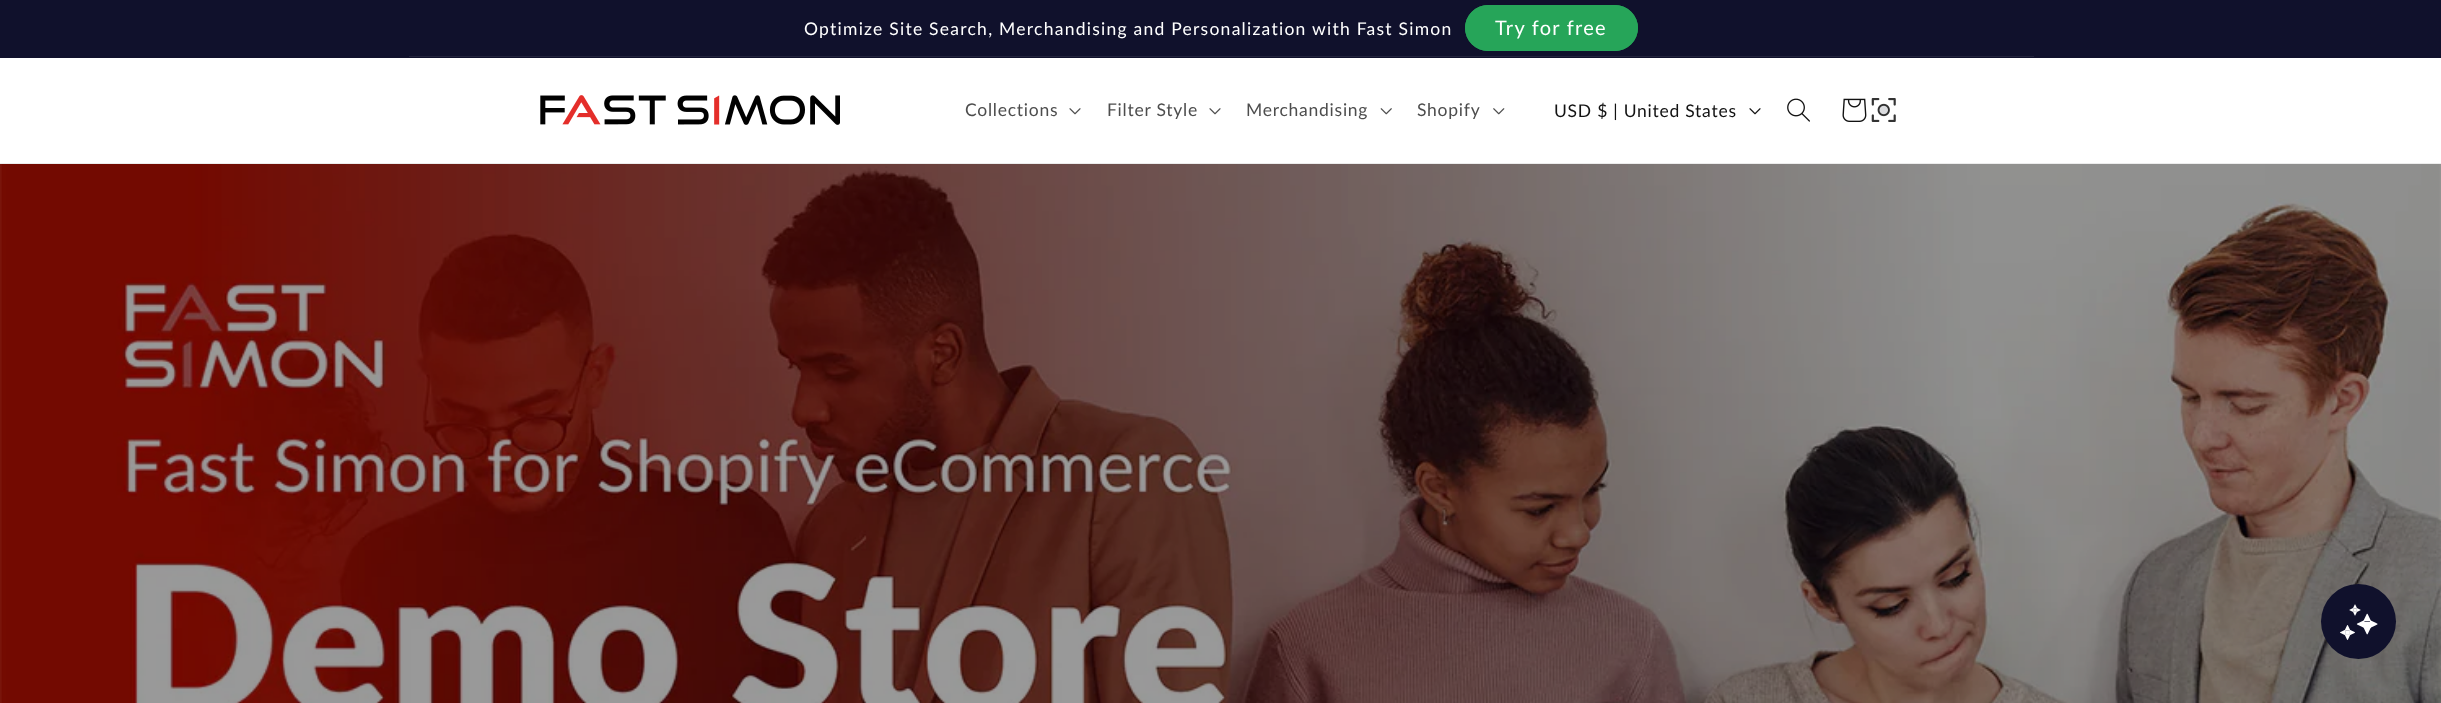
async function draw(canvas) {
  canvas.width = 2441;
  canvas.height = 703;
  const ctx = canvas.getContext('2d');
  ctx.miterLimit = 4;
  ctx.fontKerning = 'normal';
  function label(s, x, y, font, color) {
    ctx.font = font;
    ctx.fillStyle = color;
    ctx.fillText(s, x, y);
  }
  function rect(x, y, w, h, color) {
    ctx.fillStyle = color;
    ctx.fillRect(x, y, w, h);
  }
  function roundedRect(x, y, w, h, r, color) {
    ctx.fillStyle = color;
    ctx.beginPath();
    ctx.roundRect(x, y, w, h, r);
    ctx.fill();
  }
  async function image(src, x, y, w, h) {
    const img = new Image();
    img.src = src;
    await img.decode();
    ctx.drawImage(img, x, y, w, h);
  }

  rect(0, 0, 2441, 703, '#fff');
  rect(0, 0, 2441, 58, '#10112c');
  rect(409, 56, 1625, 1, '#23243d');
  ctx.letterSpacing = '1.25px';
  label('Optimize Site Search, Merchandising and Personalization with Fast Simon', 804, 35, '17.5px Lato', '#fff');
  roundedRect(1465, 5, 173, 46, 23, '#26a559');
  ctx.beginPath();
  ctx.roundRect(1465.5, 5.5, 172, 45, 22.5);
  ctx.strokeStyle = '#26a559';
  ctx.stroke();
  label('Try for free', 1495, 35, '20px Lato', '#fff');
  rect(0, 163, 2441, 1, '#ececec');
  await image('assets/img1.png', 540, 95, 300, 30);
  ctx.letterSpacing = '0.75px';
  label('Collections', 965, 116, '17.5px Lato', '#4d4d4d');
  await image('assets/img2.png', 1069, 108, 12, 7);
  label('Filter Style', 1107, 116, '17.5px Lato', '#4d4d4d');
  await image('assets/img2.png', 1209, 108, 12, 7);
  label('Merchandising', 1246, 116, '17.5px Lato', '#4d4d4d');
  await image('assets/img3.png', 1380, 108, 12, 7);
  label('Shopify', 1417, 116, '17.5px Lato', '#4d4d4d');
  await image('assets/img4.png', 1493, 108, 12, 7);
  label('USD $ | United States', 1554, 117, '17.5px Lato', '#121212');
  await image('assets/img5.png', 1749, 108, 12, 7);
  await image('assets/img6.png', 1787, 98, 23, 24);
  await image('assets/img7.png', 1842, 98, 25, 24);
  await image('assets/img8.png', 1871, 98, 25, 24);
  await image('assets/img9.png', 0, 164, 2441, 539);
  ctx.fillStyle = '#10112c';
  ctx.beginPath();
  ctx.arc(2358.5, 621.5, 37.5, 0, 2 * Math.PI);
  ctx.fill();
  await image('assets/img10.png', 2340, 604, 38, 36);
}

draw(document.querySelector('canvas'));
